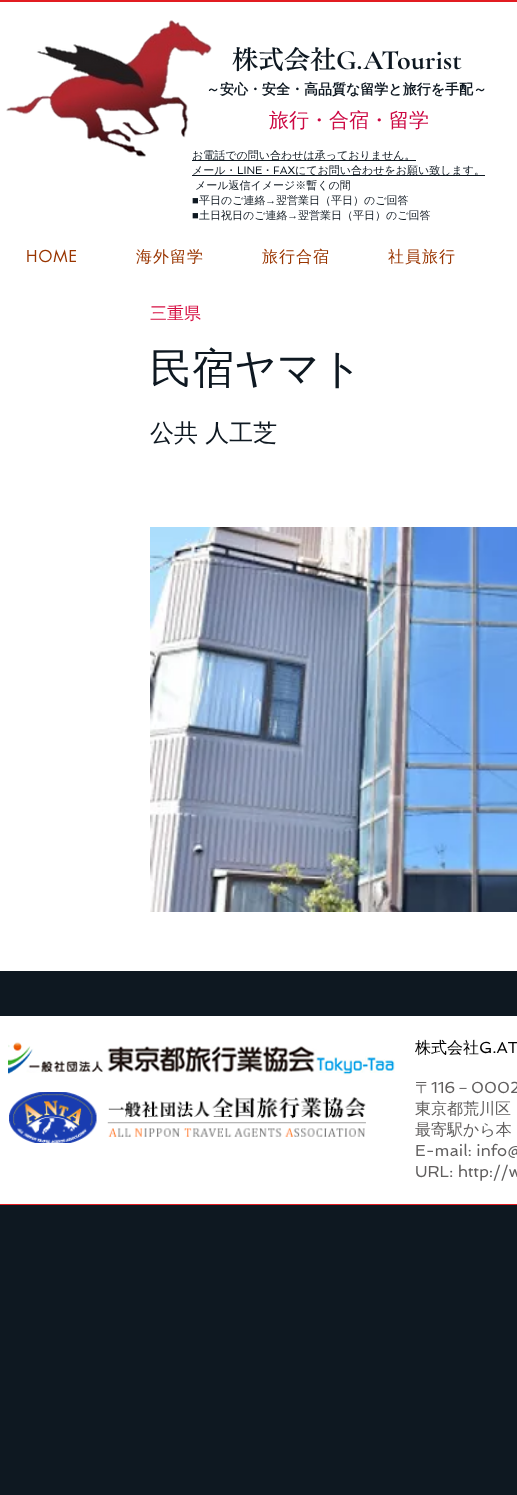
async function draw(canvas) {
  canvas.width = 517;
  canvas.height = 1495;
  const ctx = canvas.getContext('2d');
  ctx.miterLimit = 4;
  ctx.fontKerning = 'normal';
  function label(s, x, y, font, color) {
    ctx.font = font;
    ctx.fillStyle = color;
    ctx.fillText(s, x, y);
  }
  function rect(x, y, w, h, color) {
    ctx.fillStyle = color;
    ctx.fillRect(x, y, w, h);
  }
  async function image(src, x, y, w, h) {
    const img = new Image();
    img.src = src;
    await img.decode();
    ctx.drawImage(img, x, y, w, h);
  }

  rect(0, 0, 517, 1495, '#0e1821');
  rect(0, 2, 517, 969, '#fff');
  rect(0, 0, 517, 2, '#e21c21');
  await image('assets/img1.png', 6, 20, 206, 137);
  label('株式会社', 232, 69, '600 26px "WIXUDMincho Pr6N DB"', '#0e1821');
  label('G.ATourist', 336, 69, 'bold 28px Cormorant Garamond', '#0e1821');
  label('～安心・安全・高品質な留学と旅行を手配～', 206, 94, 'bold 14px WenQuanYi Zen Hei', '#0e1821');
  label('旅行・合宿・留学', 269, 127, '500 20px WenQuanYi Zen Hei', '#cc0843');
  rect(192, 160, 224, 1, '#0e1821');
  label('お電話での問い合わせは承っておりません。', 192, 159, '500 11px WenQuanYi Zen Hei', '#0e1821');
  label('メール・', 192, 174, '500 11px WenQuanYi Zen Hei', '#0e1821');
  rect(192, 175, 293, 1, '#0e1821');
  label('LINE', 237, 174, '11px Spinnaker', '#0e1821');
  label('・', 262, 174, '500 11px WenQuanYi Zen Hei', '#0e1821');
  label('FAX', 273, 174, '11px Spinnaker', '#0e1821');
  label('にてお問い合わせをお願い致します。', 295, 174, '500 11px WenQuanYi Zen Hei', '#0e1821');
  label('メール返信イメージ※暫くの間', 195, 189, '500 11px WenQuanYi Zen Hei', '#0e1821');
  label('■', 192, 204, '11px Liberation Sans', '#0e1821');
  label('平日のご連絡', 199, 204, '500 11px WenQuanYi Zen Hei', '#0e1821');
  label('→', 265, 204, '11px Liberation Sans', '#0e1821');
  label('翌営業日（平日）のご回答', 276, 204, '500 11px WenQuanYi Zen Hei', '#0e1821');
  label('■', 192, 219, '11px Liberation Sans', '#0e1821');
  label('土日祝日のご連絡', 199, 219, '500 11px WenQuanYi Zen Hei', '#0e1821');
  label('→', 287, 219, '11px Liberation Sans', '#0e1821');
  label('翌営業日（平日）のご回答', 298, 219, '500 11px WenQuanYi Zen Hei', '#0e1821');
  ctx.letterSpacing = '1px';
  label('HOME', 26, 262, '16px futura', '#993500');
  label('海外留学', 136, 262, '500 16px WenQuanYi Zen Hei', '#993500');
  label('旅行合宿', 262, 262, '500 16px WenQuanYi Zen Hei', '#993500');
  label('社員旅行', 388, 262, '500 16px WenQuanYi Zen Hei', '#993500');
  ctx.letterSpacing = '0px';
  label('三重県', 150, 319, '500 17px WenQuanYi Zen Hei', '#d61043');
  label('民宿ヤマト', 150, 383, '500 42px WenQuanYi Zen Hei', '#0e1821');
  label('公共 人工芝', 150, 441, '500 24px WenQuanYi Zen Hei', '#0e1821');
  await image('assets/img2.png', 150, 527, 367, 385);
  rect(0, 1016, 517, 188, '#fff');
  rect(0, 1204, 517, 1, '#e21c21');
  await image('assets/img3.png', 8, 1042, 387, 33);
  label('株式会社', 415, 1053, '500 16px WenQuanYi Zen Hei', '#000');
  label('G.AT', 479, 1053, '16px Spinnaker', '#000');
  label('〒', 415, 1093, '500 16px WenQuanYi Zen Hei', '#605e5e');
  label('116', 431, 1093, '16px Spinnaker', '#605e5e');
  label('－', 455, 1093, '500 16px WenQuanYi Zen Hei', '#605e5e');
  label('0002', 471, 1093, '16px Spinnaker', '#605e5e');
  label('東京都荒川区', 415, 1114, '500 16px WenQuanYi Zen Hei', '#605e5e');
  label('最寄駅から本', 415, 1135, '500 16px WenQuanYi Zen Hei', '#605e5e');
  label('E-mail: info@', 415, 1156, '16px Spinnaker', '#605e5e');
  label('URL: http://w', 415, 1177, '16px Spinnaker', '#605e5e');
  await image('assets/img4.png', 9, 1092, 357, 51);
}

draw(document.querySelector('canvas'));
